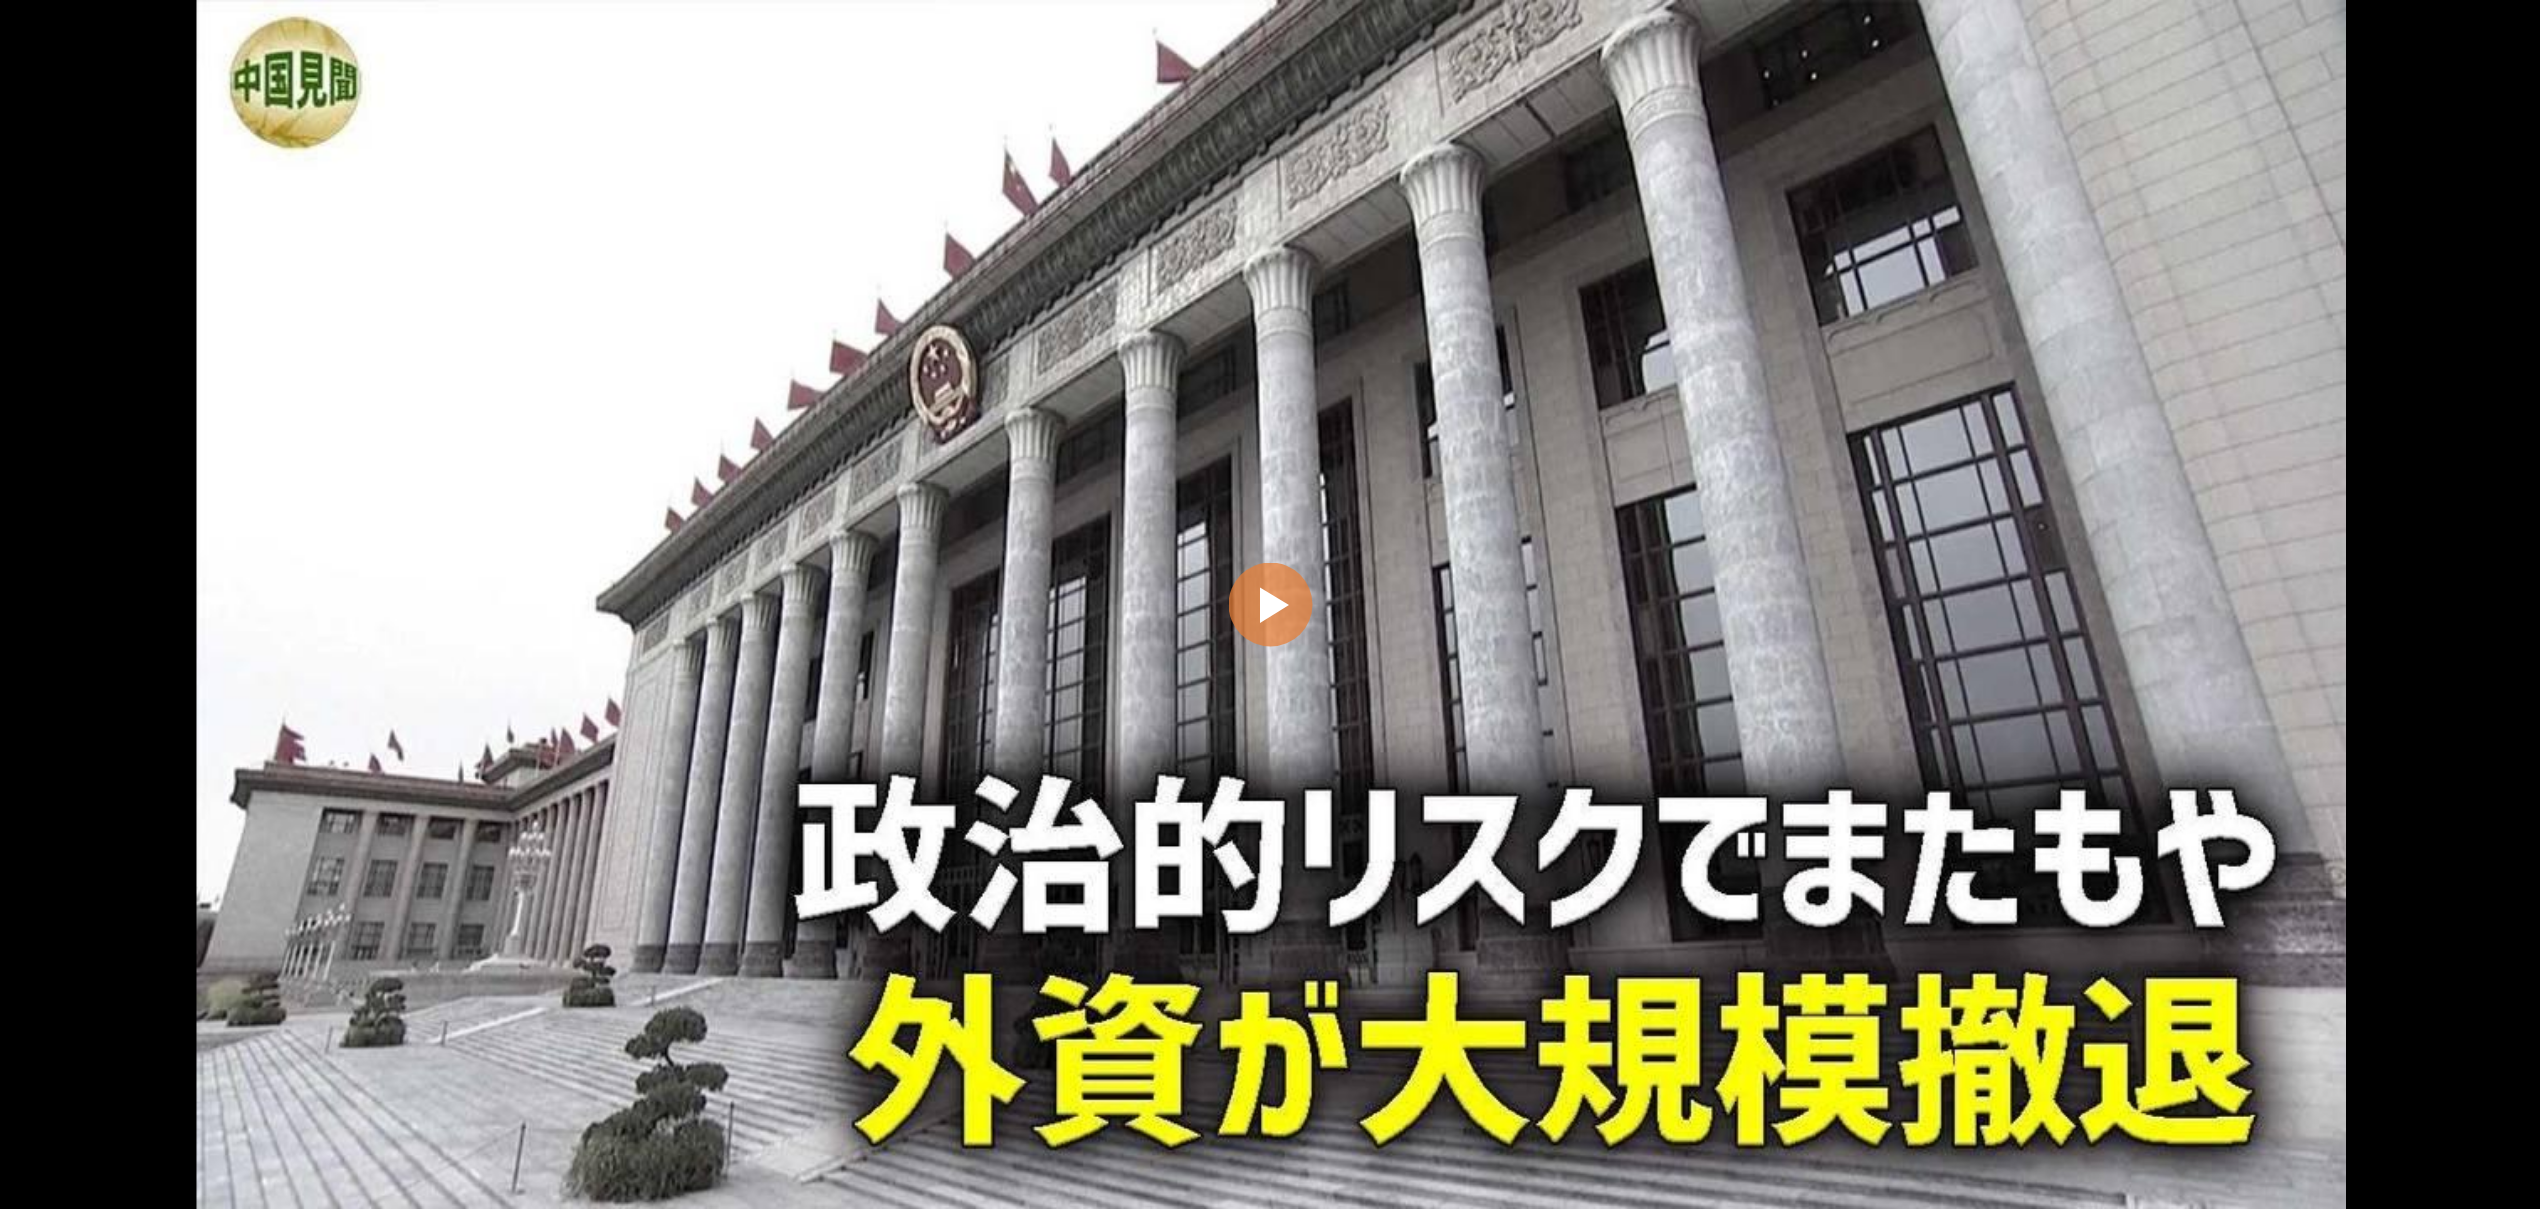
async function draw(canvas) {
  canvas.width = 2540;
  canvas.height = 1209;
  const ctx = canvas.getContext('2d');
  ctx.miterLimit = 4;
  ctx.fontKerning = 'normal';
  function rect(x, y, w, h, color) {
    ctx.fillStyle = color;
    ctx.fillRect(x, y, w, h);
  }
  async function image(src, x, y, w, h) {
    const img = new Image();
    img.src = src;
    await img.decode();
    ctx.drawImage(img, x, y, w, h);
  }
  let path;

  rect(0, 0, 2540, 1209, '#000');
  await image('assets/img1.png', 196, 0, 2150, 1209);
  ctx.save();
  ctx.beginPath();
  ctx.rect(1229, 563, 84, 84);
  ctx.clip();
  ctx.fillStyle = '#e57f38bf';
  ctx.beginPath();
  ctx.arc(1270.5, 604.5, 42, 0, 2 * Math.PI);
  ctx.fill();
  ctx.restore();
  ctx.fillStyle = '#fff';
  path = new Path2D('M1260 587.5V623L1289 605Z');
  ctx.fill(path);
}

draw(document.querySelector('canvas'));
